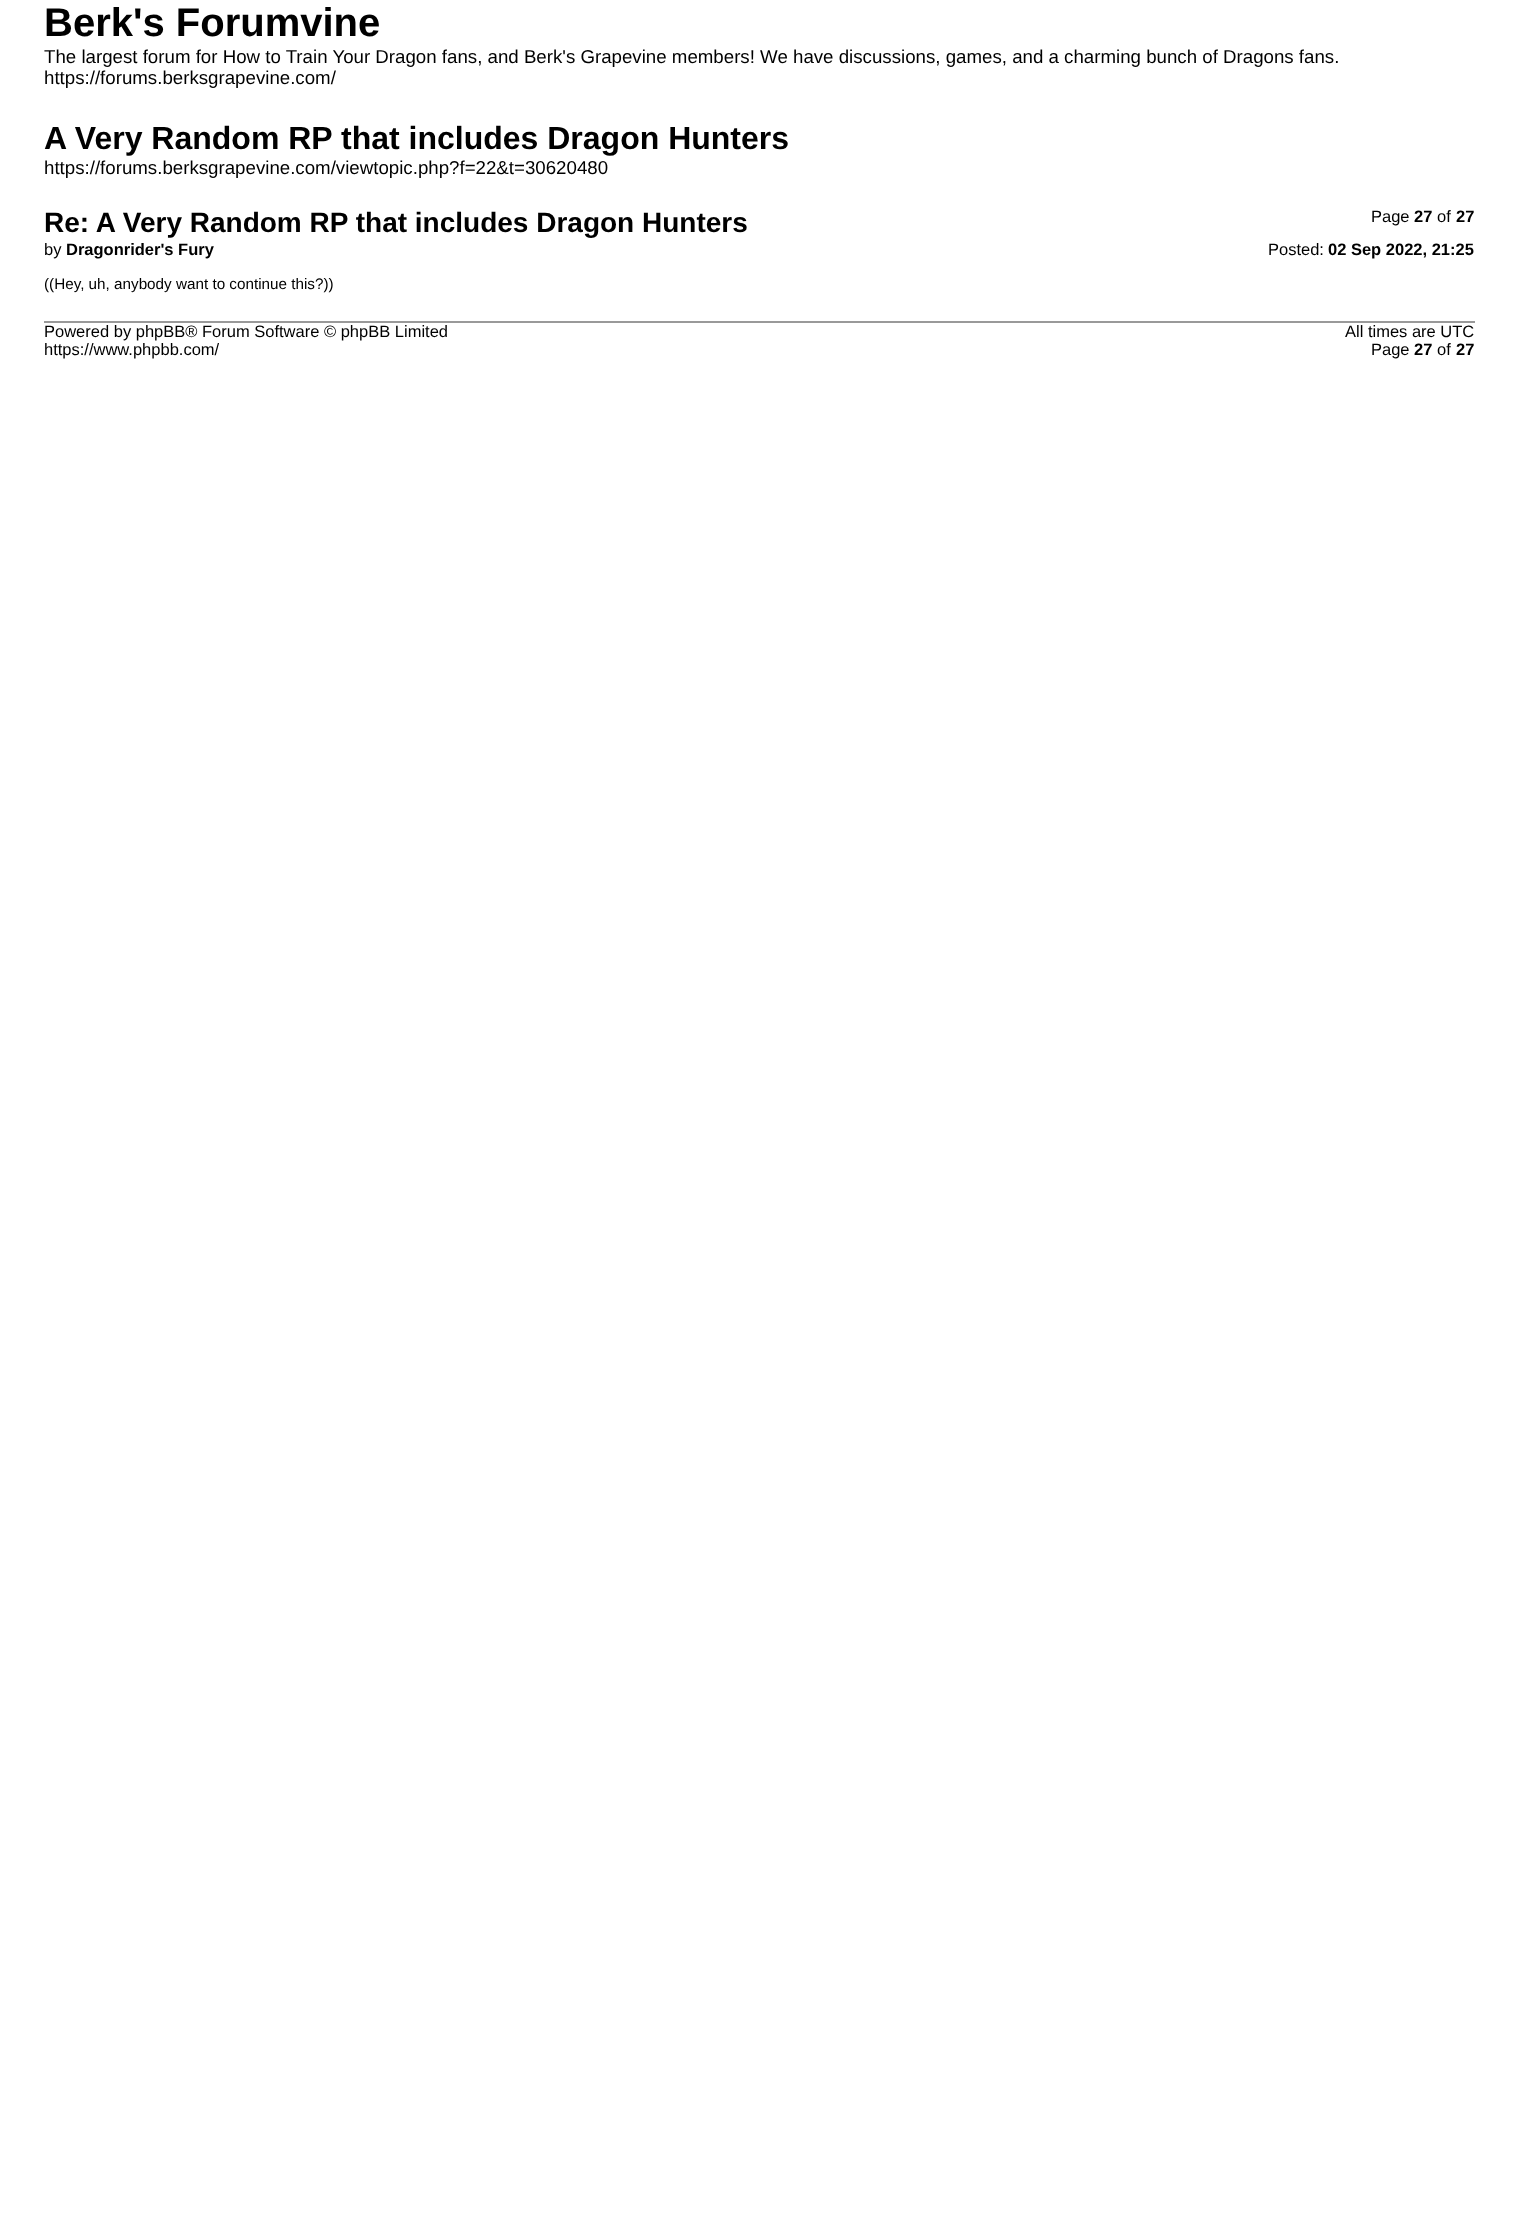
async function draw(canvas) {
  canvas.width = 1518;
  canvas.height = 2227;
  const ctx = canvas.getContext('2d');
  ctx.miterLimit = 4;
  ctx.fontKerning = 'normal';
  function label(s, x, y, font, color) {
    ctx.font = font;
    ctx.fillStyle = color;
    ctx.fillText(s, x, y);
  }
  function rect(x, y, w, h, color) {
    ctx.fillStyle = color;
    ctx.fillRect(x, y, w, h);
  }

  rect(0, 0, 1518, 2227, '#fff');
  label('Berk\'s Forumvine', 44, 36, 'bold 40px Liberation Sans', '#000');
  label('The largest forum for How to Train Your Dragon fans, and Berk\'s Grapevine members! We have discussions, games, and a charming bunch of Dragons fans.', 44, 63, '18.7px Liberation Sans', '#000');
  label('https://forums.berksgrapevine.com/', 44, 84, '18.7px Liberation Sans', '#000');
  label('A Very Random RP that includes Dragon Hunters', 44, 149, 'bold 32px Liberation Sans', '#000');
  label('https://forums.berksgrapevine.com/viewtopic.php?f=22&t=30620480', 44, 174, '18.7px Liberation Sans', '#000');
  label('Page', 1371, 222, '16.5px Liberation Sans', '#000');
  label('27', 1414, 222, 'bold 16.5px Liberation Sans', '#000');
  label('of', 1437, 222, '16.5px Liberation Sans', '#000');
  label('27', 1456, 222, 'bold 16.5px Liberation Sans', '#000');
  label('Re: A Very Random RP that includes Dragon Hunters', 44, 232, 'bold 28px Liberation Sans', '#000');
  label('by', 44, 255, '16.5px Liberation Sans', '#000');
  label('Dragonrider\'s Fury', 66, 255, 'bold 16.5px Liberation Sans', '#000');
  label('Posted:', 1268, 255, '16.5px Liberation Sans', '#000');
  label('02 Sep 2022, 21:25', 1328, 255, 'bold 16.5px Liberation Sans', '#000');
  label('((Hey, uh, anybody want to continue this?))', 44, 289, '15.25px Liberation Sans', '#000');
  rect(44, 321, 1431, 2, '#999');
  label('Powered by phpBB® Forum Software © phpBB Limited', 44, 337, '16.5px Liberation Sans', '#000');
  label('https://www.phpbb.com/', 44, 355, '16.5px Liberation Sans', '#000');
  label('All times are UTC', 1345, 337, '16.5px Liberation Sans', '#000');
  label('Page', 1371, 355, '16.5px Liberation Sans', '#000');
  label('27', 1414, 355, 'bold 16.5px Liberation Sans', '#000');
  label('of', 1437, 355, '16.5px Liberation Sans', '#000');
  label('27', 1456, 355, 'bold 16.5px Liberation Sans', '#000');
}

draw(document.querySelector('canvas'));
